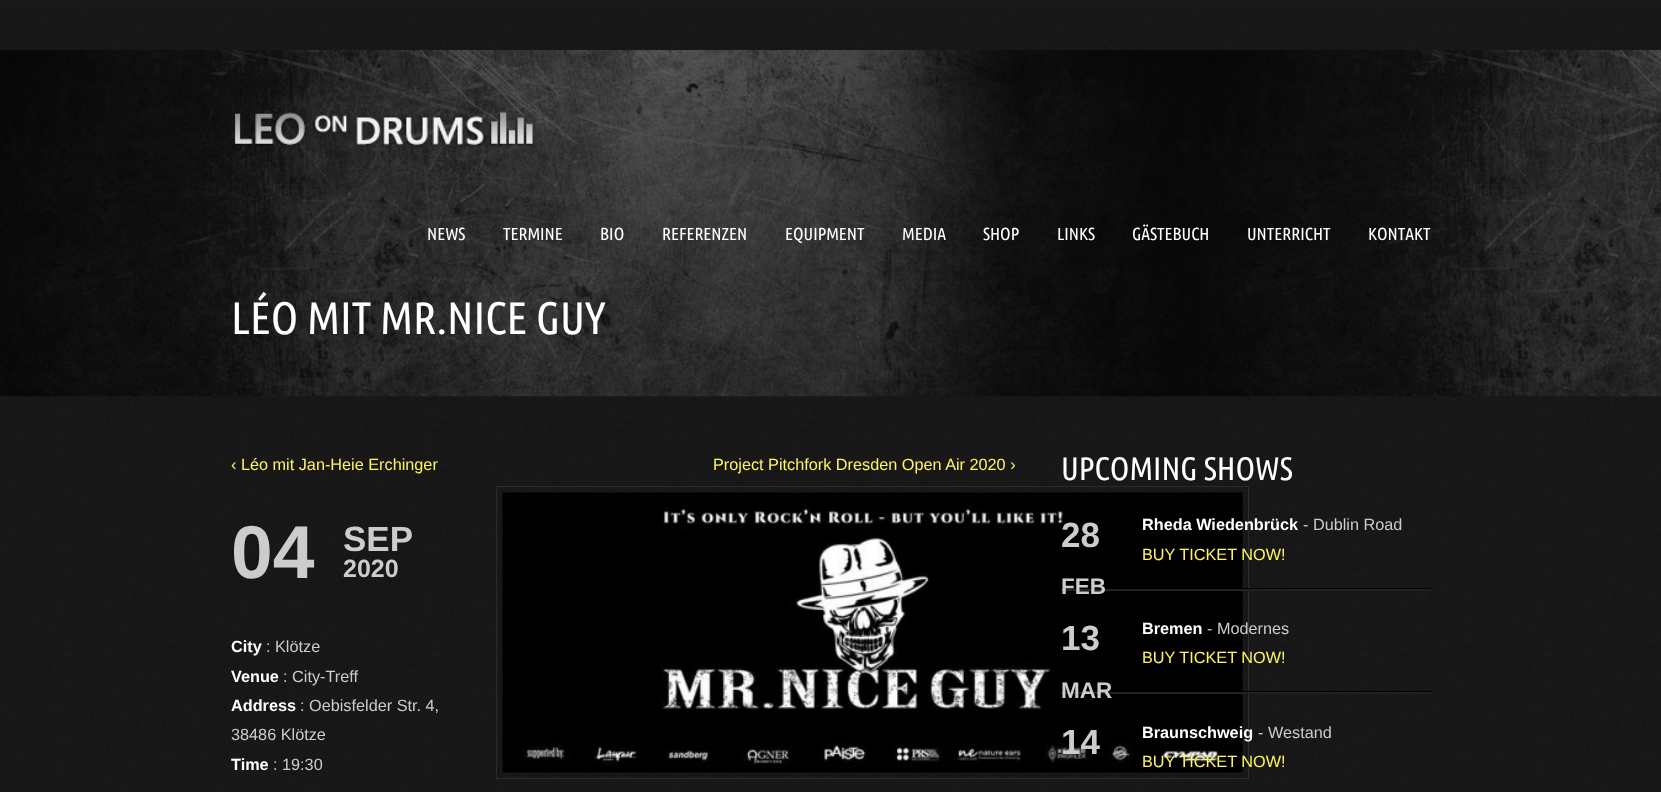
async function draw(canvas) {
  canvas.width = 1661;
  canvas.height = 792;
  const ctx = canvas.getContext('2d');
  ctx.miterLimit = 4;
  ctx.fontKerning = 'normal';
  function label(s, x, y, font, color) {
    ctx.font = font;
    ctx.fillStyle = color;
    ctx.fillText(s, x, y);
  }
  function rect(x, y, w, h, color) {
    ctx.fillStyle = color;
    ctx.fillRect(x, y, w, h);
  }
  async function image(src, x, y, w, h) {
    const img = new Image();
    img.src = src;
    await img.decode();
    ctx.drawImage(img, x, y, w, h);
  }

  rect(0, 0, 1661, 792, '#181818');
  await image('assets/img1.png', 1, 8, 1660, 783);
  await image('assets/img2.png', 0, 50, 1661, 347);
  await image('assets/img3.png', 233, 112, 300, 35);
  label('NEWS', 427, 240, '17.5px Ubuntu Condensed', '#fff');
  label('TERMINE', 503, 240, '17.5px Ubuntu Condensed', '#fff');
  label('BIO', 600, 240, '17.5px Ubuntu Condensed', '#fff');
  label('REFERENZEN', 662, 240, '17.5px Ubuntu Condensed', '#fff');
  label('EQUIPMENT', 785, 240, '17.5px Ubuntu Condensed', '#fff');
  label('MEDIA', 902, 240, '17.5px Ubuntu Condensed', '#fff');
  label('SHOP', 983, 240, '17.5px Ubuntu Condensed', '#fff');
  label('LINKS', 1057, 240, '17.5px Ubuntu Condensed', '#fff');
  label('GÄSTEBUCH', 1132, 240, '17.5px Ubuntu Condensed', '#fff');
  label('UNTERRICHT', 1247, 240, '17.5px Ubuntu Condensed', '#fff');
  label('KONTAKT', 1368, 240, '17.5px Ubuntu Condensed', '#fff');
  label('LÉO MIT MR.NICE GUY', 231, 334, '45.5px Ubuntu Condensed', '#fff');
  label('‹ Léo mit Jan-Heie Erchinger', 231, 470, '16.25px Liberation Sans', '#fff461');
  label('Project Pitchfork Dresden Open Air 2020 ›', 713, 470, '16.25px Liberation Sans', '#fff461');
  label('04', 231, 578, 'bold 75px Liberation Sans', '#ccc');
  label('SEP', 343, 551, 'bold 35px Liberation Sans', '#ccc');
  label('2020', 343, 577, 'bold 25px Liberation Sans', '#ccc');
  label('City', 231, 652, 'bold 16.25px Liberation Sans', '#fff');
  label(': Klötze', 266, 652, '16.25px Liberation Sans', '#ccc');
  label('Venue', 231, 682, 'bold 16.25px Liberation Sans', '#fff');
  label(': City-Treff', 283, 682, '16.25px Liberation Sans', '#ccc');
  label('Address', 231, 711, 'bold 16.25px Liberation Sans', '#fff');
  label(': Oebisfelder Str. 4,', 300, 711, '16.25px Liberation Sans', '#ccc');
  label('38486 Klötze', 231, 740, '16.25px Liberation Sans', '#ccc');
  label('Time', 231, 770, 'bold 16.25px Liberation Sans', '#fff');
  label(': 19:30', 273, 770, '16.25px Liberation Sans', '#ccc');
  ctx.strokeStyle = '#2c2c2c';
  ctx.strokeRect(496.5, 486.5, 752, 292);
  await image('assets/img4.png', 502, 492, 741, 281);
  label('UPCOMING SHOWS', 1061, 480, '32.5px Ubuntu Condensed', '#fff');
  label('28', 1061, 547, 'bold 35px Liberation Sans', '#ccc');
  rect(1061, 589, 370, 2, '#222');
  label('FEB', 1061, 594, 'bold 22.5px Liberation Sans', '#ccc');
  label('Rheda Wiedenbrück', 1142, 530, 'bold 16.25px Liberation Sans', '#fff');
  label('- Dublin Road', 1303, 530, '16.25px Liberation Sans', '#ccc');
  label('BUY TICKET NOW!', 1142, 560, '16.25px Liberation Sans', '#fff461');
  rect(1242, 588, 189, 1, '#010101');
  label('13', 1061, 650, 'bold 35px Liberation Sans', '#ccc');
  rect(1061, 692, 370, 2, '#222');
  label('MAR', 1061, 698, 'bold 22.5px Liberation Sans', '#ccc');
  label('Bremen', 1142, 634, 'bold 16.25px Liberation Sans', '#fff');
  label('- Modernes', 1207, 634, '16.25px Liberation Sans', '#ccc');
  label('BUY TICKET NOW!', 1142, 663, '16.25px Liberation Sans', '#fff461');
  rect(1242, 691, 189, 1, '#010101');
  label('14', 1061, 754, 'bold 35px Liberation Sans', '#ccc');
  label('Braunschweig', 1142, 738, 'bold 16.25px Liberation Sans', '#fff');
  label('- Westand', 1258, 738, '16.25px Liberation Sans', '#ccc');
  label('BUY TICKET NOW!', 1142, 767, '16.25px Liberation Sans', '#fff461');
}

draw(document.querySelector('canvas'));
